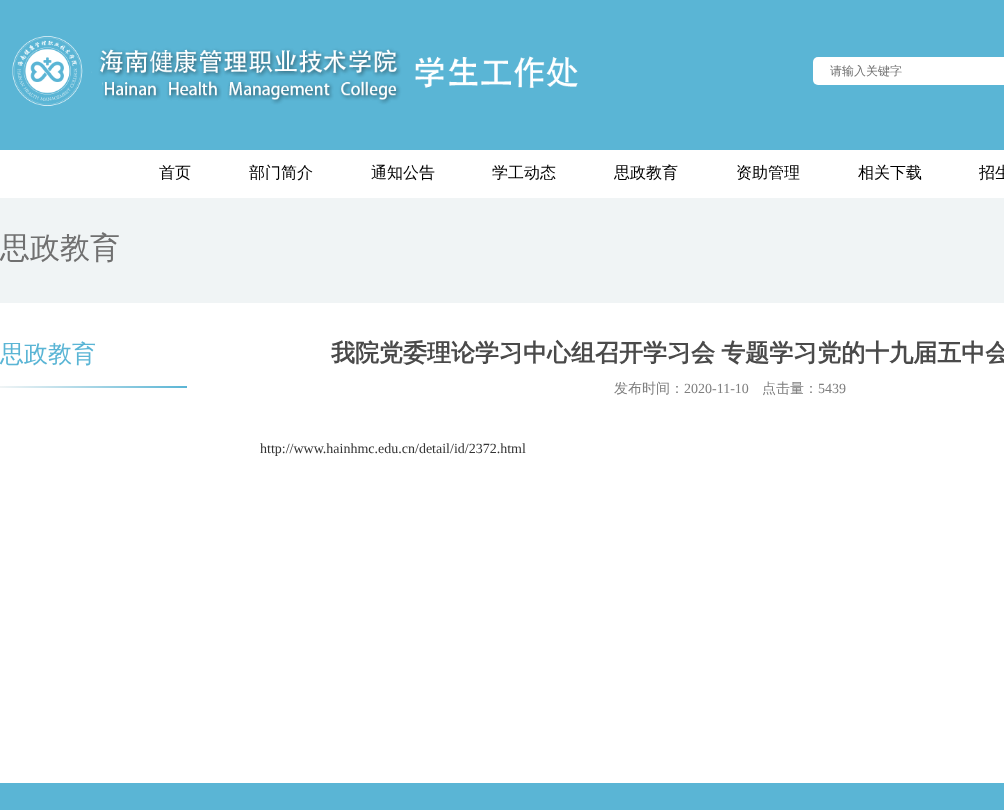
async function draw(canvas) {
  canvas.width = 1004;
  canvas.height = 810;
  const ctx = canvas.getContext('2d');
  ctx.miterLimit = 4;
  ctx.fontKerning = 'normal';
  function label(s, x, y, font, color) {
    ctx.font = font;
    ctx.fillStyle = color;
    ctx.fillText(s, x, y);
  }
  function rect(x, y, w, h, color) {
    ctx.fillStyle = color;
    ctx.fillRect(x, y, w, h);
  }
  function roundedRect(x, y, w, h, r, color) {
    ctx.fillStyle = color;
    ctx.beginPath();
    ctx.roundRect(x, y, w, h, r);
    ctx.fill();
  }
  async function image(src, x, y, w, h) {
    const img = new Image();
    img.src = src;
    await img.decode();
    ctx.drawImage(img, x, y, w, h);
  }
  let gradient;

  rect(0, 0, 1004, 810, '#fff');
  rect(0, 0, 1004, 150, '#5ab5d5');
  await image('assets/img1.png', 12, 36, 566, 70);
  roundedRect(813, 57, 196, 28, 5, '#fff');
  label('请输入关键字', 830, 75, '500 12px WenQuanYi Zen Hei', '#707070');
  label('首页', 159, 178, '500 16px WenQuanYi Zen Hei', '#000');
  label('部门简介', 249, 178, '500 16px WenQuanYi Zen Hei', '#000');
  label('通知公告', 371, 178, '500 16px WenQuanYi Zen Hei', '#000');
  label('学工动态', 492, 178, '500 16px WenQuanYi Zen Hei', '#000');
  label('思政教育', 614, 178, '500 16px WenQuanYi Zen Hei', '#000');
  label('资助管理', 736, 178, '500 16px WenQuanYi Zen Hei', '#000');
  label('相关下载', 858, 178, '500 16px WenQuanYi Zen Hei', '#000');
  label('招生', 979, 178, '500 16px WenQuanYi Zen Hei', '#000');
  rect(0, 198, 1004, 105, '#f0f4f5');
  label('思政教育', 0, 258, '500 30px WenQuanYi Zen Hei', '#707070');
  label('思政教育', 0, 362, '500 24px WenQuanYi Zen Hei', '#5ab5d5');
  gradient = ctx.createLinearGradient(0, 387, 187, 387);
  gradient.addColorStop(0, '#f0f4f5');
  gradient.addColorStop(1, '#5ab5d5');
  ctx.fillStyle = gradient;
  ctx.fillRect(0, 386, 187, 2);
  ctx.wordSpacing = '-1px';
  label('我院党委理论学习中心组召开学习会 专题学习党的十九届五中会', 331, 361, 'bold 24px WenQuanYi Zen Hei', '#4a4a4a');
  ctx.wordSpacing = '0px';
  label('发布时间：', 614, 393, '500 14px WenQuanYi Zen Hei', '#7e7e7e');
  label('2020-11-10', 684, 393, '14px Liberation Serif', '#7e7e7e');
  label('点击量：', 762, 393, '500 14px WenQuanYi Zen Hei', '#7e7e7e');
  label('5439', 818, 393, '14px Liberation Serif', '#7e7e7e');
  label('http://www.hainhmc.edu.cn/detail/id/2372.html', 260, 453, '14px Liberation Serif', '#333');
  rect(0, 783, 1004, 27, '#5ab5d5');
}

draw(document.querySelector('canvas'));
